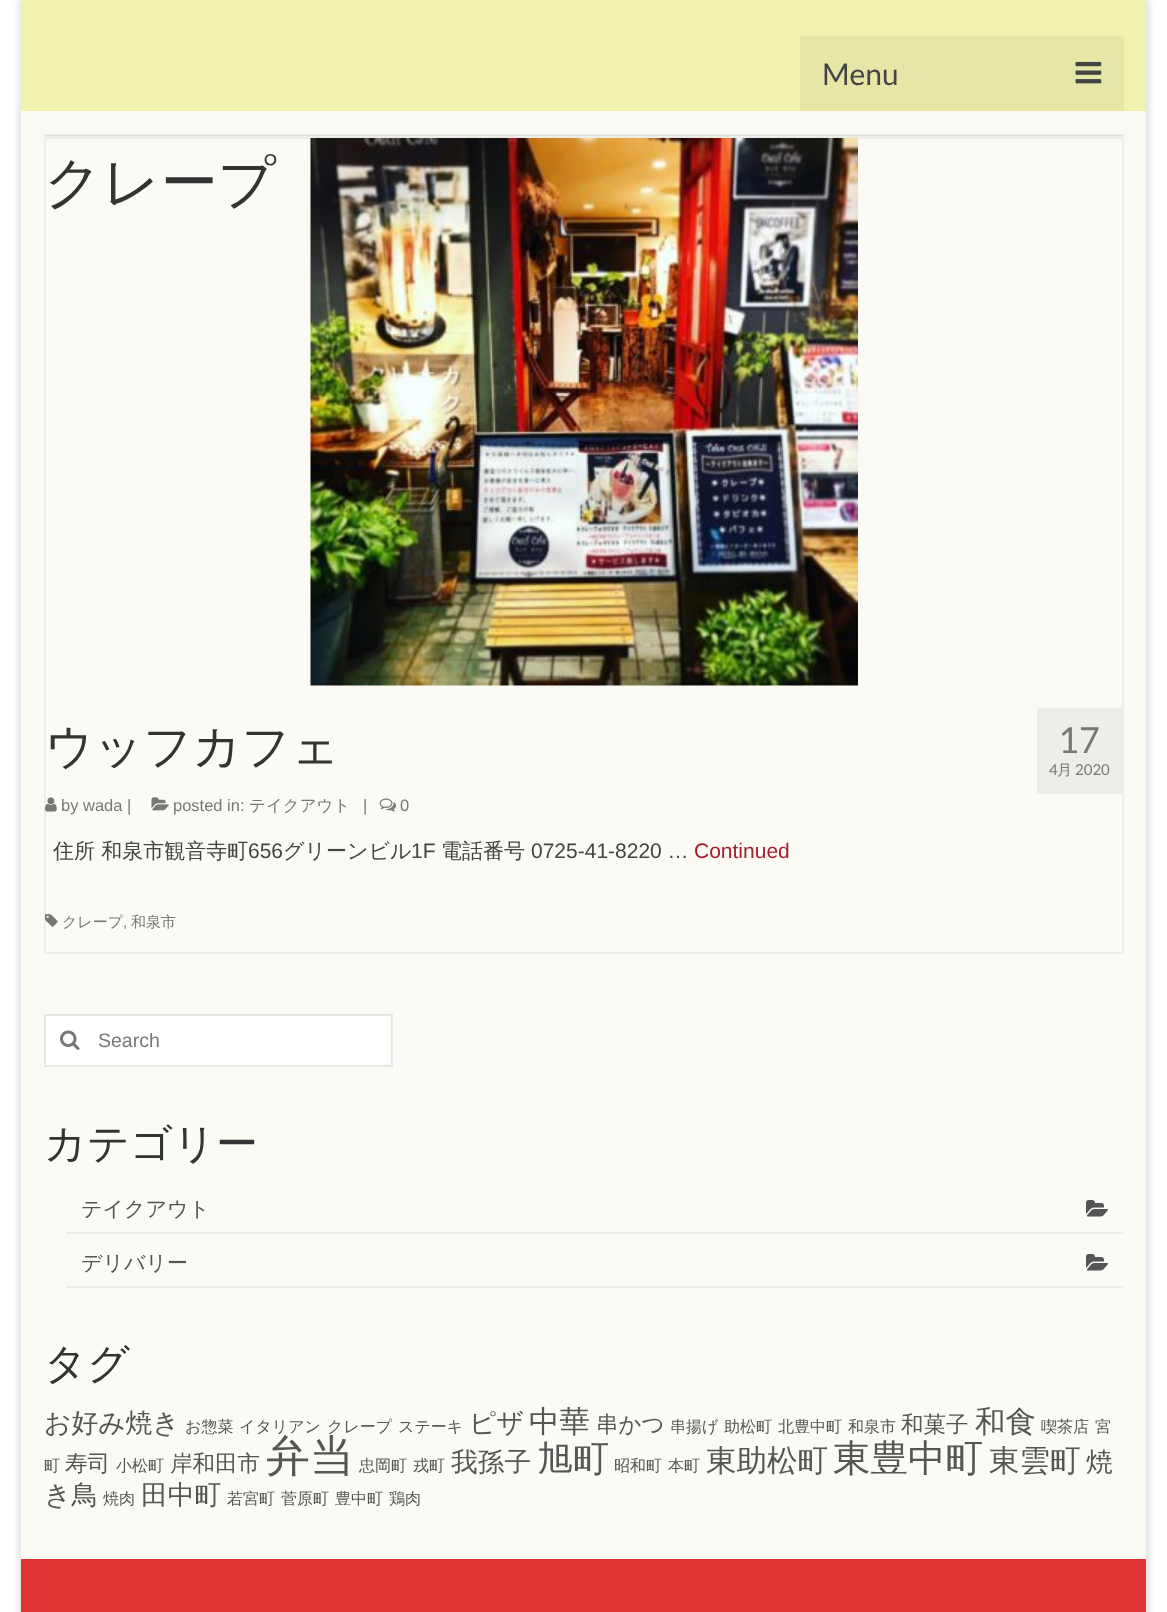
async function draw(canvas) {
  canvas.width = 1167;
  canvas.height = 1612;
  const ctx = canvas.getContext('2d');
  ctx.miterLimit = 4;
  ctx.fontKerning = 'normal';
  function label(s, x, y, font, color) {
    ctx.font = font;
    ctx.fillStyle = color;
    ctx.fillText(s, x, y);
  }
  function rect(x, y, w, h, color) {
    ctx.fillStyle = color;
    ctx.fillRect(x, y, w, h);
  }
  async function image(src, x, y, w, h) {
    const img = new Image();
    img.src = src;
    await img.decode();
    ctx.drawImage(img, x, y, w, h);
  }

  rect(0, 0, 1167, 1612, '#fff');
  ctx.fillStyle = '#00000029';
  ctx.filter = 'blur(4px)';
  ctx.beginPath();
  ctx.rect(20, -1, 1128, 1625);
  ctx.fill();
  ctx.filter = 'none';
  rect(21, 0, 1125, 111, '#f2f2b0');
  rect(800, 36, 324, 75, '#e6e6a7');
  label('Menu', 822, 85, '30px Lato', '#444');
  await image('assets/img1.png', 1075, 61, 27, 23);
  rect(21, 111, 1125, 1448, '#fbfaf5');
  rect(44, 136, 1080, 1, '#eeeee9');
  rect(44, 134, 1080, 1, '#eeeee9');
  rect(44, 135, 1080, 1, '#e2e2dd');
  label('クレープ', 44, 202, '500 57px WenQuanYi Zen Hei', '#333');
  ctx.strokeStyle = '#eeeee9';
  ctx.lineWidth = 2;
  ctx.strokeRect(45, 138, 1078, 815);
  await image('assets/img2.png', 310, 138, 548, 548);
  label('ウッフカフェ', 45, 763, '500 48px WenQuanYi Zen Hei', '#333');
  await image('assets/img3.png', 45, 797, 12, 15);
  label('by wada |', 61, 811, '16.5px Liberation Sans', '#777');
  await image('assets/img4.png', 151, 797, 18, 14);
  label('posted in:', 173, 811, '16.5px Liberation Sans', '#777');
  label('テイクアウト', 249, 811, '500 16.5px WenQuanYi Zen Hei', '#777');
  label('|', 363, 811, '16.5px Liberation Sans', '#777');
  await image('assets/img5.png', 379, 798, 17, 14);
  label('0', 400, 811, '16.5px Liberation Sans', '#777');
  rect(1037, 708, 85, 86, '#eeeee9');
  label('17', 1058, 753, '36px Lato', '#777');
  label('4', 1049, 775, '15px Lato', '#777');
  label('月', 1057, 775, '500 15px WenQuanYi Zen Hei', '#777');
  label('2020', 1075, 775, '15px Lato', '#777');
  label('住所 和泉市観音寺町', 53, 858, '500 21px WenQuanYi Zen Hei', '#444');
  label('656', 248, 858, '21px Liberation Sans', '#444');
  label('グリーンビル', 283, 858, '500 21px WenQuanYi Zen Hei', '#444');
  label('1F', 411, 858, '21px Liberation Sans', '#444');
  label('電話番号', 441, 858, '500 21px WenQuanYi Zen Hei', '#444');
  label('0725-41-8220 …', 531, 858, '21px Liberation Sans', '#444');
  label('Continued', 694, 858, '21px Liberation Sans', '#a41e2e');
  await image('assets/img6.png', 45, 914, 13, 13);
  label('クレープ', 62, 927, '500 15px WenQuanYi Zen Hei', '#777');
  label(',', 123, 927, '15px Liberation Sans', '#777');
  label('和泉市', 131, 927, '500 15px WenQuanYi Zen Hei', '#777');
  ctx.fillStyle = '#fff';
  ctx.filter = 'blur(2px)';
  ctx.beginPath();
  ctx.rect(44, 1014, 349, 53);
  ctx.fill();
  ctx.filter = 'none';
  ctx.strokeStyle = '#e7e7e7';
  ctx.strokeRect(45, 1015, 347, 51);
  await image('assets/img7.png', 60, 1030, 20, 20);
  label('Search', 98, 1047, '19.5px Liberation Sans', '#777');
  label('カテゴリー', 44, 1158, '500 42px WenQuanYi Zen Hei', '#333');
  rect(66, 1232, 1058, 2, '#eeeee9');
  label('テイクアウト', 81, 1216, '500 21px WenQuanYi Zen Hei', '#555');
  await image('assets/img8.png', 1086, 1200, 22, 17);
  rect(66, 1286, 1058, 2, '#eeeee9');
  label('デリバリー', 81, 1270, '500 21px WenQuanYi Zen Hei', '#555');
  await image('assets/img8.png', 1086, 1254, 22, 17);
  label('タグ', 44, 1378, '500 42px WenQuanYi Zen Hei', '#333');
  label('お好み焼き', 44, 1432, '500 26.75px WenQuanYi Zen Hei', '#555');
  label('お惣菜', 185, 1432, '500 16px WenQuanYi Zen Hei', '#555');
  label('イタリアン', 239, 1432, '500 16px WenQuanYi Zen Hei', '#555');
  label('クレープ', 327, 1432, '500 16px WenQuanYi Zen Hei', '#555');
  label('ステーキ', 398, 1432, '500 16px WenQuanYi Zen Hei', '#555');
  label('ピザ', 469, 1432, '500 26.75px WenQuanYi Zen Hei', '#555');
  label('中華', 529, 1432, '500 30.5px WenQuanYi Zen Hei', '#555');
  label('串かつ', 596, 1432, '500 22.5px WenQuanYi Zen Hei', '#555');
  label('串揚げ', 670, 1432, '500 16px WenQuanYi Zen Hei', '#555');
  label('助松町', 724, 1432, '500 16px WenQuanYi Zen Hei', '#555');
  label('北豊中町', 778, 1432, '500 16px WenQuanYi Zen Hei', '#555');
  label('和泉市', 848, 1432, '500 16px WenQuanYi Zen Hei', '#555');
  label('和菓子', 901, 1432, '500 22.5px WenQuanYi Zen Hei', '#555');
  label('和食', 975, 1432, '500 30.5px WenQuanYi Zen Hei', '#555');
  label('喫茶店', 1041, 1432, '500 16px WenQuanYi Zen Hei', '#555');
  label('宮', 1095, 1432, '500 16px WenQuanYi Zen Hei', '#555');
  label('町', 44, 1471, '500 16px WenQuanYi Zen Hei', '#555');
  label('寿司', 65, 1471, '500 22.5px WenQuanYi Zen Hei', '#555');
  label('小松町', 116, 1471, '500 16px WenQuanYi Zen Hei', '#555');
  label('岸和田市', 170, 1471, '500 22.5px WenQuanYi Zen Hei', '#555');
  label('弁当', 266, 1471, '500 44px WenQuanYi Zen Hei', '#555');
  label('忠岡町', 359, 1471, '500 16px WenQuanYi Zen Hei', '#555');
  label('戎町', 413, 1471, '500 16px WenQuanYi Zen Hei', '#555');
  label('我孫子', 451, 1471, '500 26.75px WenQuanYi Zen Hei', '#555');
  label('旭町', 537, 1471, '500 36px WenQuanYi Zen Hei', '#555');
  label('昭和町', 614, 1471, '500 16px WenQuanYi Zen Hei', '#555');
  label('本町', 668, 1471, '500 16px WenQuanYi Zen Hei', '#555');
  label('東助松町', 706, 1471, '500 30.5px WenQuanYi Zen Hei', '#555');
  label('東豊中町', 833, 1471, '500 37.5px WenQuanYi Zen Hei', '#555');
  label('東雲町', 989, 1471, '500 30.5px WenQuanYi Zen Hei', '#555');
  label('焼', 1086, 1471, '500 26.75px WenQuanYi Zen Hei', '#555');
  label('き鳥', 44, 1504, '500 26.75px WenQuanYi Zen Hei', '#555');
  label('焼肉', 103, 1504, '500 16px WenQuanYi Zen Hei', '#555');
  label('田中町', 141, 1504, '500 26.75px WenQuanYi Zen Hei', '#555');
  label('若宮町', 227, 1504, '500 16px WenQuanYi Zen Hei', '#555');
  label('菅原町', 281, 1504, '500 16px WenQuanYi Zen Hei', '#555');
  label('豊中町', 335, 1504, '500 16px WenQuanYi Zen Hei', '#555');
  label('鶏肉', 389, 1504, '500 16px WenQuanYi Zen Hei', '#555');
  rect(21, 1559, 1125, 53, '#d33');
}

draw(document.querySelector('canvas'));
